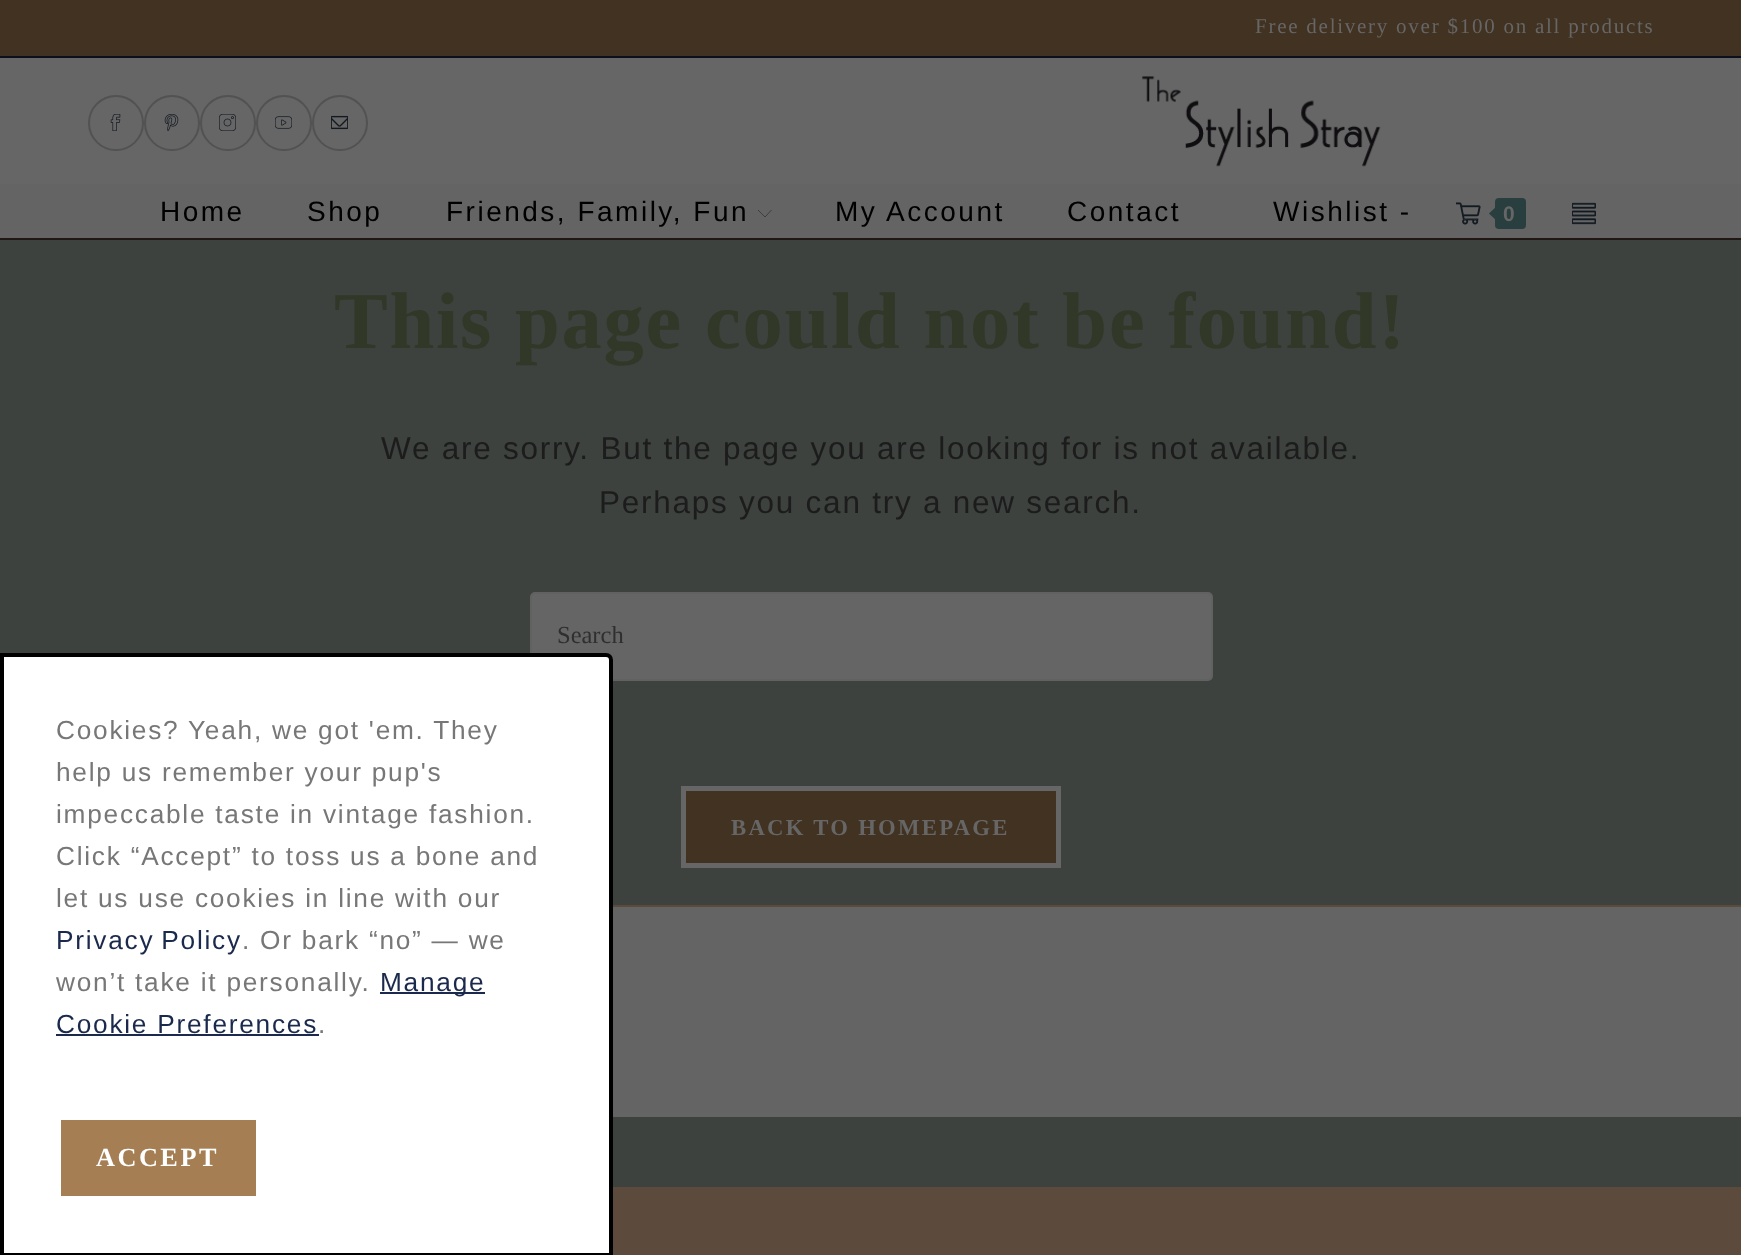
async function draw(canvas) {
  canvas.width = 1741;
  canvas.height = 1255;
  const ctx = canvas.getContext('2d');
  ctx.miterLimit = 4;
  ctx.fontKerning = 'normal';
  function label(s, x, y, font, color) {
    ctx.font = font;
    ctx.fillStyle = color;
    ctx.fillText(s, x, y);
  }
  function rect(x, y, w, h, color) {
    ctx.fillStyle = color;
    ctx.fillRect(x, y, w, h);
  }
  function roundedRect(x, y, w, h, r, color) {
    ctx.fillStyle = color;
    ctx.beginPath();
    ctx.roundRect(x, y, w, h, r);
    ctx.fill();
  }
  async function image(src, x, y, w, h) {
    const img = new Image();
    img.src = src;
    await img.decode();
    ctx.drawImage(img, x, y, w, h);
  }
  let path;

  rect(0, 0, 1741, 1255, '#3d423e');
  rect(0, 0, 1741, 56, '#423222');
  rect(0, 56, 1741, 2, '#0a101e');
  ctx.letterSpacing = '1.75px';
  label('Free delivery over $100 on all products', 1255, 33, '21px Liberation Serif', '#666');
  rect(0, 238, 1741, 2, '#201715');
  rect(0, 58, 1741, 126, '#666');
  ctx.beginPath();
  ctx.arc(116, 123, 27, 0, 2 * Math.PI);
  ctx.strokeStyle = '#525252';
  ctx.lineWidth = 2;
  ctx.stroke();
  await image('assets/img1.png', 110, 114, 11, 17);
  ctx.beginPath();
  ctx.arc(172, 123, 27, 0, 2 * Math.PI);
  ctx.stroke();
  await image('assets/img2.png', 164, 114, 15, 17);
  ctx.beginPath();
  ctx.arc(228, 123, 27, 0, 2 * Math.PI);
  ctx.stroke();
  await image('assets/img3.png', 219, 114, 17, 17);
  ctx.beginPath();
  ctx.arc(284, 123, 27, 0, 2 * Math.PI);
  ctx.stroke();
  await image('assets/img4.png', 275, 116, 17, 13);
  ctx.beginPath();
  ctx.arc(340, 123, 27, 0, 2 * Math.PI);
  ctx.stroke();
  await image('assets/img5.png', 331, 115, 17, 15);
  await image('assets/img6.png', 1142, 76, 239, 91);
  rect(0, 184, 1741, 54, '#646464');
  ctx.letterSpacing = '2.5px';
  label('Home', 160, 221, '28px Liberation Sans', '#000');
  label('Shop', 307, 221, '28px Liberation Sans', '#000');
  label('Friends, Family, Fun', 446, 221, '28px Liberation Sans', '#000');
  path = new Path2D('M771.5 210L765 217L758 210');
  ctx.strokeStyle = '#121920';
  ctx.lineWidth = 0.5;
  ctx.stroke(path);
  label('My Account', 835, 221, '28px Liberation Sans', '#000');
  label('Contact', 1067, 221, '28px Liberation Sans', '#000');
  label('Wishlist -', 1273, 221, '28px Liberation Sans', '#000');
  await image('assets/img7.png', 1456, 202, 25, 23);
  roundedRect(1495, 198, 31, 31, 4, '#293e3e');
  path = new Path2D('M1498 205V222L1489 213.5Z');
  ctx.fill(path);
  label('0', 1503, 221, 'bold 21px Liberation Sans', '#666');
  await image('assets/img8.png', 1572, 202, 24, 23);
  ctx.letterSpacing = '1.75px';
  label('This page could not be found!', 334, 348, 'bold 80.5px Liberation Serif', '#313827');
  label('We are sorry. But the page you are looking for is not available.', 381, 459, '31.5px Liberation Sans', '#1c1c1c');
  label('Perhaps you can try a new search.', 599, 513, '31.5px Liberation Sans', '#1c1c1c');
  ctx.fillStyle = '#656565';
  ctx.beginPath();
  ctx.roundRect(531, 593, 681, 87, 4);
  ctx.fill();
  ctx.strokeStyle = '#616161';
  ctx.lineWidth = 2;
  ctx.stroke();
  ctx.letterSpacing = '0px';
  label('Search', 557, 643, '24.5px Liberation Serif', '#2f2f2f');
  ctx.fillStyle = '#423222';
  ctx.beginPath();
  ctx.rect(683.5, 788.5, 375, 77);
  ctx.fill();
  ctx.strokeStyle = '#666';
  ctx.lineWidth = 5;
  ctx.stroke();
  ctx.letterSpacing = '2.25px';
  label('BACK TO HOMEPAGE', 731, 835, 'bold 22.75px Liberation Serif', '#666');
  rect(613, 907, 1128, 210, '#646464');
  rect(613, 905, 1128, 2, '#5c4b3c');
  rect(613, 1187, 1128, 68, '#5c4b3c');
  ctx.fillStyle = '#fff';
  path = new Path2D('M2 655H606C609 655 611 657 611 660V1255H2Z');
  ctx.fill(path);
  ctx.strokeStyle = '#000';
  ctx.lineWidth = 4;
  ctx.stroke(path);
  ctx.letterSpacing = '1.75px';
  label('Cookies? Yeah, we got \'em. They', 56, 739, '26.25px Liberation Sans', '#777');
  label('help us remember your pup\'s', 56, 781, '26.25px Liberation Sans', '#777');
  label('impeccable taste in vintage fashion.', 56, 823, '26.25px Liberation Sans', '#777');
  label('Click “Accept” to toss us a bone and', 56, 865, '26.25px Liberation Sans', '#777');
  label('let us use cookies in line with our', 56, 907, '26.25px Liberation Sans', '#777');
  ctx.wordSpacing = '-2px';
  label('Privacy Policy', 56, 949, '26.25px Liberation Sans', '#1a294c');
  ctx.wordSpacing = '0px';
  label('. Or bark “no” — we', 242, 949, '26.25px Liberation Sans', '#777');
  label('won’t take it personally.', 56, 991, '26.25px Liberation Sans', '#777');
  rect(380, 992, 105, 2, '#1a294c');
  label('Manage', 380, 991, '26.25px Liberation Sans', '#1a294c');
  label('Cookie Preferences', 56, 1033, '26.25px Liberation Sans', '#1a294c');
  rect(56, 1034, 263, 2, '#1a294c');
  label('.', 318, 1033, '26.25px Liberation Sans', '#777');
  rect(61, 1120, 195, 76, '#a57e54');
  ctx.letterSpacing = '2.5px';
  label('ACCEPT', 96, 1166, 'bold 26.25px Liberation Serif', '#fff');
}

draw(document.querySelector('canvas'));
